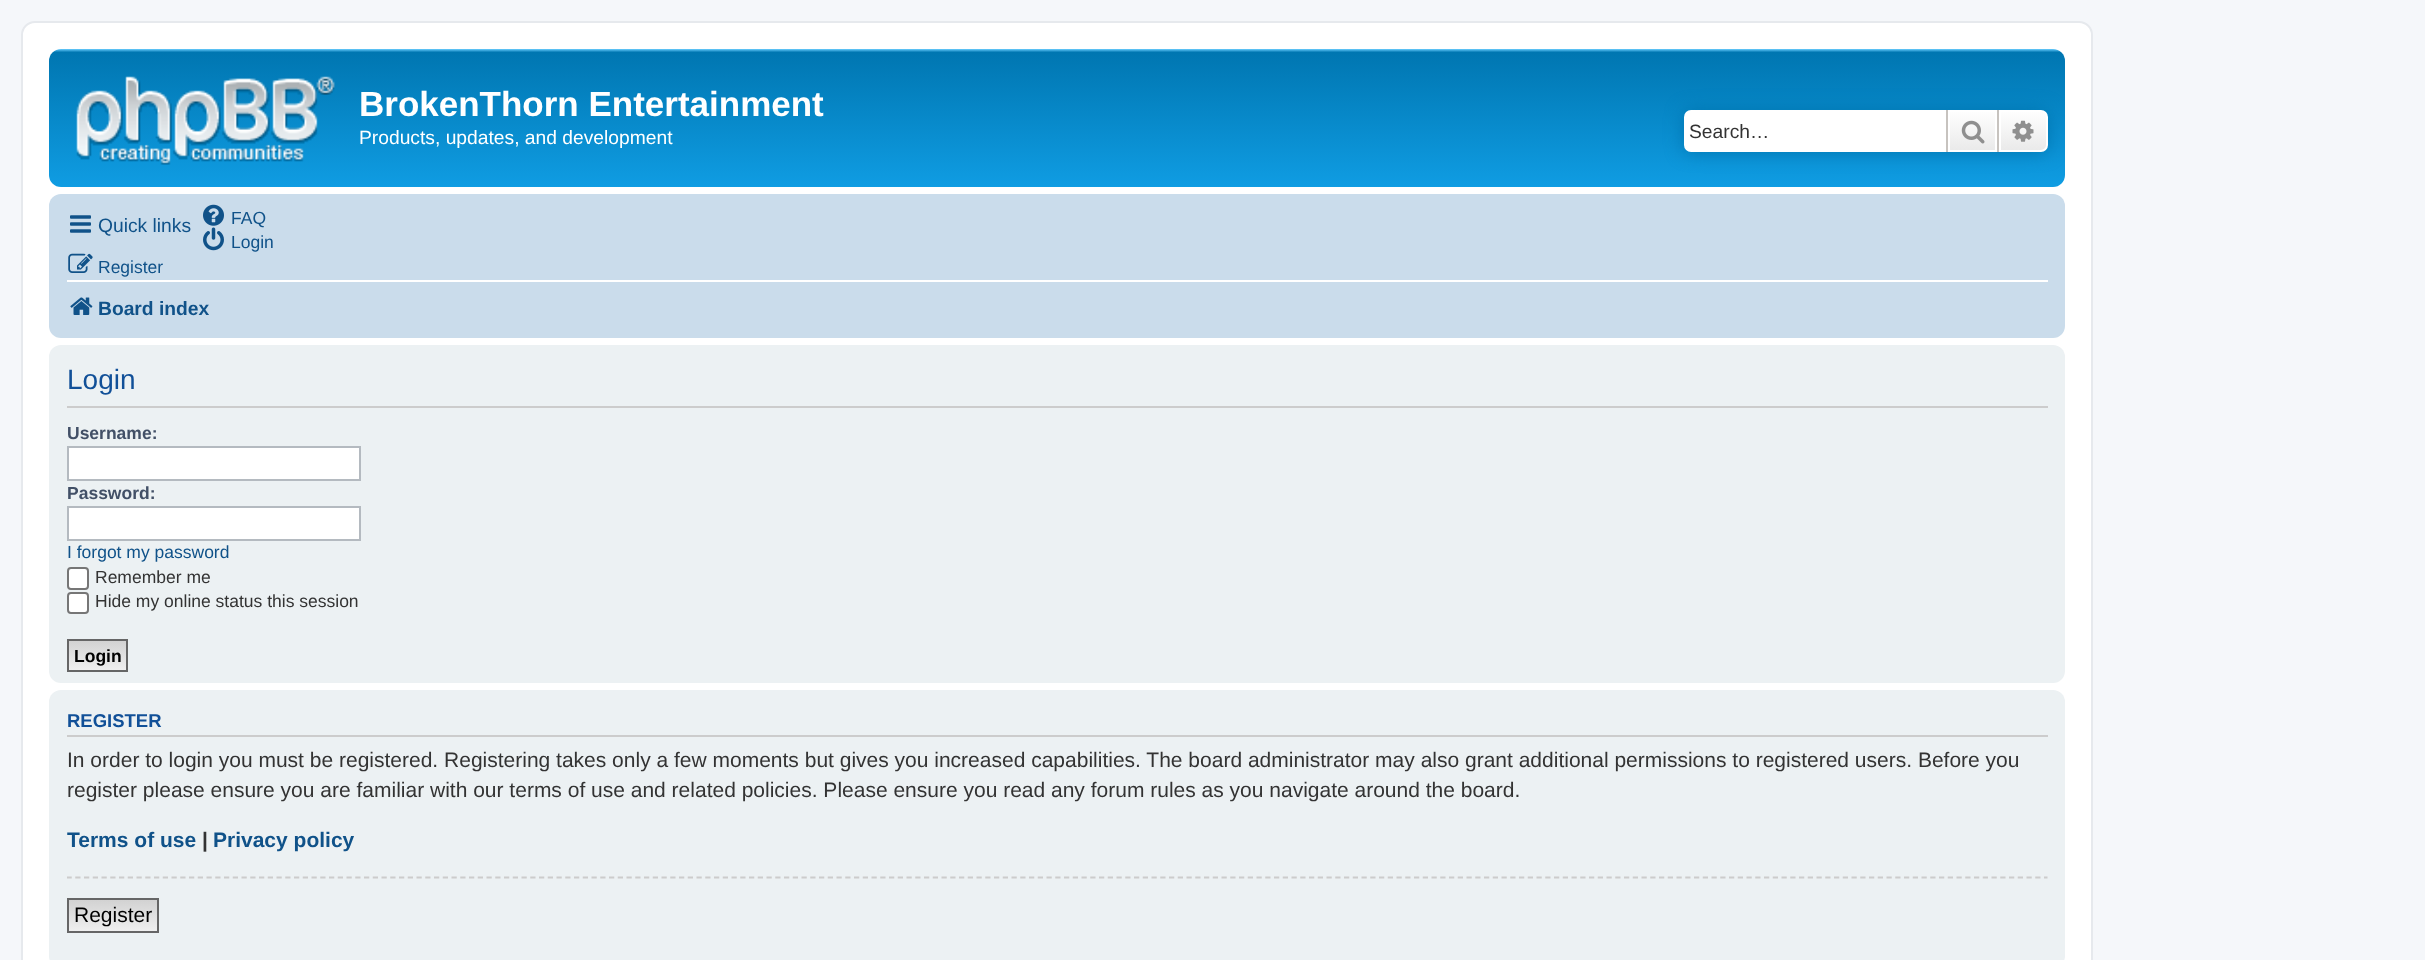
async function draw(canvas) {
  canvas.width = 2425;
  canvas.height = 960;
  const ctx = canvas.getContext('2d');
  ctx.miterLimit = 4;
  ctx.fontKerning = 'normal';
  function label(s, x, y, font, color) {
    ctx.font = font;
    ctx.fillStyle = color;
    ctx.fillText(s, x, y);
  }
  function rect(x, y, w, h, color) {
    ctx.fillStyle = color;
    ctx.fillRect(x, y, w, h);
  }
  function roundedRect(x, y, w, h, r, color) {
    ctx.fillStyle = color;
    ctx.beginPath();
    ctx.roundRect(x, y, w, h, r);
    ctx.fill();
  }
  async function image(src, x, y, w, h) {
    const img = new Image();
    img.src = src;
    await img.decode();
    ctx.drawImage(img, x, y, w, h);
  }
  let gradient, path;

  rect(0, 0, 2425, 960, '#f5f7fa');
  ctx.fillStyle = '#fff';
  ctx.beginPath();
  ctx.roundRect(22, 22, 2070, 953, 13);
  ctx.fill();
  ctx.strokeStyle = '#e6e9ed';
  ctx.lineWidth = 2;
  ctx.stroke();
  gradient = ctx.createLinearGradient(1057, 49, 1057, 210);
  gradient.addColorStop(0, '#6aceff');
  gradient.addColorStop(0.02, '#0076b1');
  gradient.addColorStop(1, '#12a3eb');
  ctx.fillStyle = gradient;
  ctx.beginPath();
  ctx.roundRect(49, 49, 2016, 138, 12);
  ctx.fill();
  await image('assets/img1.png', 76, 76, 259, 89);
  label('BrokenThorn Entertainment', 359, 116, 'bold 35px Liberation Sans', '#fff');
  label('Products, updates, and development', 359, 144, '19.25px Liberation Sans', '#fff');
  ctx.fillStyle = '#0075b0';
  ctx.filter = 'blur(9px)';
  ctx.beginPath();
  ctx.roundRect(1684, 110, 364, 42, 7);
  ctx.fill();
  ctx.filter = 'none';
  ctx.fillStyle = '#fff';
  ctx.beginPath();
  ctx.roundRect(1684, 110, 262, 42, [7, 0, 0, 7]);
  ctx.fill();
  label('Search…', 1689, 138, '19.25px Liberation Sans', '#333');
  gradient = ctx.createLinearGradient(1972, 110, 1972, 152);
  gradient.addColorStop(0, '#fff');
  gradient.addColorStop(1, '#e9e9e9');
  ctx.fillStyle = gradient;
  ctx.fillRect(1950, 112, 45, 38);
  ctx.strokeStyle = '#fff';
  ctx.strokeRect(1949, 111, 47, 40);
  rect(1997, 110, 2, 42, '#c7c3bf');
  rect(1946, 110, 2, 42, '#c7c3bf');
  await image('assets/img2.png', 1961, 120, 24, 24);
  gradient = ctx.createLinearGradient(2023, 110, 2023, 152);
  gradient.addColorStop(0, '#fff');
  gradient.addColorStop(1, '#e9e9e9');
  ctx.fillStyle = gradient;
  ctx.beginPath();
  ctx.roundRect(2000, 111, 47, 40, [0, 6, 6, 0]);
  ctx.fill();
  ctx.stroke();
  await image('assets/img3.png', 2012, 120, 22, 22);
  roundedRect(49, 194, 2016, 144, 12, '#cadceb');
  await image('assets/img4.png', 203, 204, 21, 22);
  label('FAQ', 231, 224, '17.5px Liberation Sans', '#105289');
  await image('assets/img5.png', 203, 227, 21, 24);
  label('Login', 231, 248, '17.5px Liberation Sans', '#105289');
  await image('assets/img6.png', 68, 253, 25, 20);
  label('Register', 98, 273, '17.5px Liberation Sans', '#105289');
  await image('assets/img7.png', 70, 215, 21, 18);
  label('Quick links', 98, 232, '19.25px Liberation Sans', '#105289');
  rect(67, 280, 1981, 2, '#fff');
  await image('assets/img8.png', 70, 297, 23, 18);
  label('Board index', 98, 315, 'bold 19.25px Liberation Sans', '#105289');
  roundedRect(49, 345, 2016, 338, 12, '#ecf1f3');
  rect(67, 406, 1981, 2, '#ccc');
  label('Login', 67, 389, '28px Liberation Sans', '#115098');
  label('Username:', 67, 439, 'bold 17.5px Liberation Sans', '#425067');
  ctx.fillStyle = '#fff';
  ctx.beginPath();
  ctx.rect(68, 447, 292, 33);
  ctx.fill();
  ctx.strokeStyle = '#b4bac0';
  ctx.stroke();
  label('Password:', 67, 499, 'bold 17.5px Liberation Sans', '#425067');
  ctx.fillStyle = '#fff';
  ctx.beginPath();
  ctx.rect(68, 507, 292, 33);
  ctx.fill();
  ctx.stroke();
  label('I forgot my password', 67, 558, '17.5px Liberation Sans', '#105289');
  ctx.fillStyle = '#fff';
  ctx.beginPath();
  ctx.roundRect(68, 568, 20, 21, 3);
  ctx.fill();
  ctx.strokeStyle = '#767676';
  ctx.stroke();
  label('Remember me', 95, 583, '17.5px Liberation Sans', '#333');
  ctx.fillStyle = '#fff';
  ctx.beginPath();
  ctx.roundRect(68, 593, 20, 20, 3);
  ctx.fill();
  ctx.stroke();
  label('Hide my online status this session', 95, 607, '17.5px Liberation Sans', '#333');
  gradient = ctx.createLinearGradient(97, 641, 97, 670);
  gradient.addColorStop(0, '#d2d2d2');
  gradient.addColorStop(1, '#efefef');
  ctx.fillStyle = gradient;
  ctx.fillRect(69, 641, 57, 29);
  ctx.strokeStyle = '#666';
  ctx.strokeRect(68, 640, 59, 31);
  label('Login', 74, 662, 'bold 17.5px Liberation Sans', '#000');
  roundedRect(49, 690, 2016, 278, 12, '#ecf1f3');
  rect(67, 735, 1981, 2, '#ccc');
  label('REGISTER', 67, 727, 'bold 18.5px Liberation Sans', '#115098');
  label('In order to login you must be registered. Registering takes only a few moments but gives you increased capabilities. The board administrator may also grant additional permissions to registered users. Before you', 67, 767, '21px Liberation Sans', '#333');
  label('register please ensure you are familiar with our terms of use and related policies. Please ensure you read any forum rules as you navigate around the board.', 67, 797, '21px Liberation Sans', '#333');
  ctx.save();
  ctx.beginPath();
  ctx.rect(67, 698, 1981, 261);
  ctx.clip();
  label('Terms of use', 67, 847, 'bold 21px Liberation Sans', '#105289');
  ctx.restore();
  label('|', 202, 847, 'bold 21px Liberation Sans', '#333');
  label('Privacy policy', 213, 847, 'bold 21px Liberation Sans', '#105289');
  ctx.save();
  ctx.beginPath();
  ctx.rect(67, 698, 1981, 261);
  ctx.clip();
  path = new Path2D('M66.5 877.5H2047.5');
  ctx.strokeStyle = '#ccc';
  ctx.lineWidth = 1.8;
  ctx.setLineDash([5.25, 3.5]);
  ctx.stroke(path);
  ctx.restore();
  gradient = ctx.createLinearGradient(113, 900, 113, 931);
  gradient.addColorStop(0, '#d2d2d2');
  gradient.addColorStop(1, '#efefef');
  ctx.fillStyle = gradient;
  ctx.fillRect(69, 900, 88, 31);
  ctx.strokeRect(68, 899, 90, 33);
  label('Register', 74, 922, '21px Liberation Sans', '#000');
}

draw(document.querySelector('canvas'));
